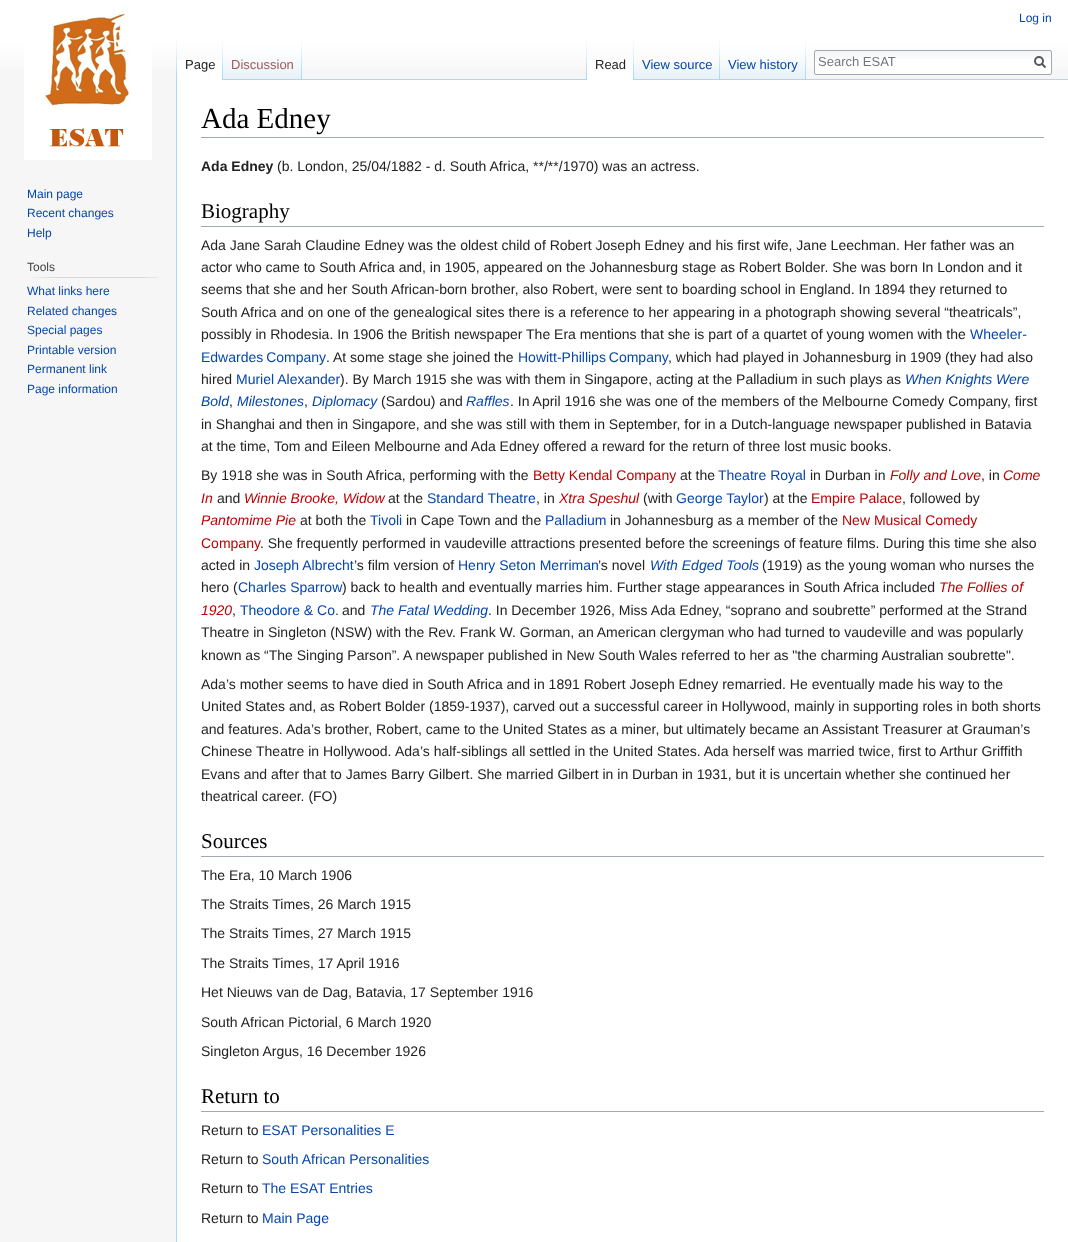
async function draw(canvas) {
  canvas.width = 1068;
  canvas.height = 1242;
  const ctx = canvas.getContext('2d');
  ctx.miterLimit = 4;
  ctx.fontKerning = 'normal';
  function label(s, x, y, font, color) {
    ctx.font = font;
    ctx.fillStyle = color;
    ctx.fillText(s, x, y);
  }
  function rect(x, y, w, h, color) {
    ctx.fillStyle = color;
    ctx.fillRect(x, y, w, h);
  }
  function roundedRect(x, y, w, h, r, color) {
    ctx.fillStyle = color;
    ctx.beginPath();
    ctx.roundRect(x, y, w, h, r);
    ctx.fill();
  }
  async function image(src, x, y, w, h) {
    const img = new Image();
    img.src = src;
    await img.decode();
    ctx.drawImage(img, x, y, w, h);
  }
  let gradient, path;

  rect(0, 0, 1068, 1242, '#f6f6f6');
  gradient = ctx.createLinearGradient(534, 0, 534, 80);
  gradient.addColorStop(0.5, '#fff');
  gradient.addColorStop(1, '#f6f6f6');
  ctx.fillStyle = gradient;
  ctx.fillRect(0, 0, 1068, 69);
  label('Log in', 1019, 22, '12px Liberation Sans', '#0645ad');
  await image('assets/img1.png', 176, 40, 1, 39);
  rect(177, 60, 45, 20, '#fff');
  await image('assets/img2.png', 222, 40, 1, 40);
  label('Page', 185, 69, '13px Liberation Sans', '#222');
  await image('assets/img3.png', 223, 40, 78, 39);
  await image('assets/img1.png', 301, 40, 1, 39);
  label('Discussion', 231, 69, '13px Liberation Sans', '#a55858');
  await image('assets/img1.png', 586, 40, 1, 39);
  rect(223, 79, 845, 1, '#a7d7f9');
  rect(587, 60, 46, 20, '#fff');
  await image('assets/img2.png', 633, 40, 1, 40);
  label('Read', 595, 69, '13px Liberation Sans', '#222');
  await image('assets/img4.png', 634, 62, 85, 17);
  await image('assets/img1.png', 719, 40, 1, 39);
  label('View source', 642, 69, '13px Liberation Sans', '#0645ad');
  await image('assets/img5.png', 720, 40, 85, 39);
  await image('assets/img1.png', 805, 40, 1, 39);
  label('View history', 728, 69, '13px Liberation Sans', '#0645ad');
  roundedRect(814, 50, 238, 25, 2, '#fff');
  await image('assets/img6.png', 814, 51, 238, 8);
  ctx.beginPath();
  ctx.roundRect(814.5, 50.5, 237, 24, 1.5);
  ctx.strokeStyle = '#a2a9b1';
  ctx.stroke();
  label('Search ESAT', 818, 66, '13px Liberation Sans', '#72777d');
  path = new Path2D('M1045.5 67.5L1041.5 63.5');
  ctx.strokeStyle = '#54595d';
  ctx.lineWidth = 2;
  ctx.stroke(path);
  ctx.beginPath();
  ctx.arc(1039, 61, 4, 0, 2 * Math.PI);
  ctx.stroke();
  await image('assets/img7.png', 24, 11, 128, 149);
  label('Main page', 27, 198, '12px Liberation Sans', '#0645ad');
  label('Recent changes', 27, 217, '12px Liberation Sans', '#0645ad');
  label('Help', 27, 237, '12px Liberation Sans', '#0645ad');
  label('Tools', 27, 271, '12px Liberation Sans', '#444');
  await image('assets/img8.png', 30, 277, 128, 1);
  label('What links here', 27, 295, '12px Liberation Sans', '#0645ad');
  label('Related changes', 27, 315, '12px Liberation Sans', '#0645ad');
  label('Special pages', 27, 334, '12px Liberation Sans', '#0645ad');
  label('Printable version', 27, 354, '12px Liberation Sans', '#0645ad');
  label('Permanent link', 27, 373, '12px Liberation Sans', '#0645ad');
  label('Page information', 27, 393, '12px Liberation Sans', '#0645ad');
  rect(177, 80, 891, 1162, '#fff');
  rect(176, 79, 1, 1163, '#a7d7f9');
  rect(201, 137, 843, 1, '#a2a9b1');
  label('Ada Edney', 201, 128, '29px Liberation Serif', '#000');
  label('Ada Edney', 201, 171, 'bold 14px Liberation Sans', '#222');
  label('(b. London, 25/04/1882 - d. South Africa, **/**/1970) was an actress.', 277, 171, '14px Liberation Sans', '#222');
  rect(201, 226, 843, 1, '#a2a9b1');
  label('Biography', 201, 218, '21px Liberation Serif', '#000');
  label('Ada Jane Sarah Claudine Edney was the oldest child of Robert Joseph Edney and his first wife, Jane Leechman. Her father was an', 201, 250, '14px Liberation Sans', '#222');
  label('actor who came to South Africa and, in 1905, appeared on the Johannesburg stage as Robert Bolder. She was born In London and it', 201, 272, '14px Liberation Sans', '#222');
  label('seems that she and her South African-born brother, also Robert, were sent to boarding school in England. In 1894 they returned to', 201, 294, '14px Liberation Sans', '#222');
  label('South Africa and on one of the genealogical sites there is a reference to her appearing in a photograph showing several “theatricals”,', 201, 317, '14px Liberation Sans', '#222');
  label('possibly in Rhodesia. In 1906 the British newspaper The Era mentions that she is part of a quartet of young women with the', 201, 339, '14px Liberation Sans', '#222');
  label('Wheeler-', 970, 339, '14px Liberation Sans', '#0645ad');
  ctx.wordSpacing = '-1px';
  label('Edwardes Company', 201, 362, '14px Liberation Sans', '#0645ad');
  ctx.wordSpacing = '0px';
  label('.', 326, 362, '14px Liberation Sans', '#222');
  label('At some stage she joined the', 333, 362, '14px Liberation Sans', '#222');
  ctx.wordSpacing = '-1px';
  label('Howitt-Phillips Company', 518, 362, '14px Liberation Sans', '#0645ad');
  ctx.wordSpacing = '0px';
  label(', which had played in Johannesburg in 1909 (they had also', 668, 362, '14px Liberation Sans', '#222');
  label('hired', 201, 384, '14px Liberation Sans', '#222');
  label('Muriel Alexander', 236, 384, '14px Liberation Sans', '#0645ad');
  label('). By March 1915 she was with them in Singapore, acting at the Palladium in such plays as', 340, 384, '14px Liberation Sans', '#222');
  label('When Knights Were', 905, 384, 'italic 14px Liberation Sans', '#0645ad');
  label('Bold', 201, 406, 'italic 14px Liberation Sans', '#0645ad');
  label(',', 229, 406, '14px Liberation Sans', '#222');
  label('Milestones', 237, 406, 'italic 14px Liberation Sans', '#0645ad');
  label(',', 304, 406, '14px Liberation Sans', '#222');
  label('Diplomacy', 312, 406, 'italic 14px Liberation Sans', '#0645ad');
  label('(Sardou) and', 381, 406, '14px Liberation Sans', '#222');
  label('Raffles', 466, 406, 'italic 14px Liberation Sans', '#0645ad');
  label('. In April 1916 she was one of the members of the Melbourne Comedy Company, first', 510, 406, '14px Liberation Sans', '#222');
  label('in Shanghai and then in Singapore, and she was still with them in September, for in a Dutch-language newspaper published in Batavia', 201, 429, '14px Liberation Sans', '#222');
  label('at the time, Tom and Eileen Melbourne and Ada Edney offered a reward for the return of three lost music books.', 201, 451, '14px Liberation Sans', '#222');
  label('By 1918 she was in South Africa, performing with the', 201, 480, '14px Liberation Sans', '#222');
  label('Betty Kendal Company', 533, 480, '14px Liberation Sans', '#ba0000');
  label('at the', 680, 480, '14px Liberation Sans', '#222');
  label('Theatre Royal', 718, 480, '14px Liberation Sans', '#0645ad');
  label('in Durban in', 810, 480, '14px Liberation Sans', '#222');
  label('Folly and Love', 890, 480, 'italic 14px Liberation Sans', '#ba0000');
  label(', in', 981, 480, '14px Liberation Sans', '#222');
  label('Come', 1003, 480, 'italic 14px Liberation Sans', '#ba0000');
  label('In', 201, 503, 'italic 14px Liberation Sans', '#ba0000');
  label('and', 217, 503, '14px Liberation Sans', '#222');
  label('Winnie Brooke, Widow', 244, 503, 'italic 14px Liberation Sans', '#ba0000');
  label('at the', 388, 503, '14px Liberation Sans', '#222');
  label('Standard Theatre', 427, 503, '14px Liberation Sans', '#0645ad');
  label(', in', 536, 503, '14px Liberation Sans', '#222');
  label('Xtra Speshul', 559, 503, 'italic 14px Liberation Sans', '#ba0000');
  label('(with', 643, 503, '14px Liberation Sans', '#222');
  label('George Taylor', 676, 503, '14px Liberation Sans', '#0645ad');
  label(') at the', 764, 503, '14px Liberation Sans', '#222');
  label('Empire Palace', 811, 503, '14px Liberation Sans', '#ba0000');
  label(', followed by', 902, 503, '14px Liberation Sans', '#222');
  label('Pantomime Pie', 201, 525, 'italic 14px Liberation Sans', '#ba0000');
  label('at both the', 300, 525, '14px Liberation Sans', '#222');
  label('Tivoli', 370, 525, '14px Liberation Sans', '#0645ad');
  label('in Cape Town and the', 406, 525, '14px Liberation Sans', '#222');
  label('Palladium', 545, 525, '14px Liberation Sans', '#0645ad');
  label('in Johannesburg as a member of the', 610, 525, '14px Liberation Sans', '#222');
  label('New Musical Comedy', 842, 525, '14px Liberation Sans', '#ba0000');
  label('Company', 201, 548, '14px Liberation Sans', '#ba0000');
  label('. She frequently performed in vaudeville attractions presented before the screenings of feature films. During this time she also', 260, 548, '14px Liberation Sans', '#222');
  label('acted in', 201, 570, '14px Liberation Sans', '#222');
  label('Joseph Albrecht', 254, 570, '14px Liberation Sans', '#0645ad');
  label('’s film version of', 354, 570, '14px Liberation Sans', '#222');
  label('Henry Seton Merriman', 458, 570, '14px Liberation Sans', '#0645ad');
  label('’s novel', 598, 570, '14px Liberation Sans', '#222');
  label('With Edged Tools', 650, 570, 'italic 14px Liberation Sans', '#0645ad');
  label('(1919) as the young woman who nurses the', 762, 570, '14px Liberation Sans', '#222');
  label('hero (', 201, 592, '14px Liberation Sans', '#222');
  label('Charles Sparrow', 238, 592, '14px Liberation Sans', '#0645ad');
  label(') back to health and eventually marries him. Further stage appearances in South Africa included', 342, 592, '14px Liberation Sans', '#222');
  label('The Follies of', 939, 592, 'italic 14px Liberation Sans', '#ba0000');
  label('1920', 201, 615, 'italic 14px Liberation Sans', '#ba0000');
  label(',', 232, 615, '14px Liberation Sans', '#222');
  label('Theodore & Co.', 240, 615, '14px Liberation Sans', '#0645ad');
  label('and', 342, 615, '14px Liberation Sans', '#222');
  label('The Fatal Wedding', 370, 615, 'italic 14px Liberation Sans', '#0645ad');
  label('. In December 1926, Miss Ada Edney, “soprano and soubrette” performed at the Strand', 488, 615, '14px Liberation Sans', '#222');
  label('Theatre in Singleton (NSW) with the Rev. Frank W. Gorman, an American clergyman who had turned to vaudeville and was popularly', 201, 637, '14px Liberation Sans', '#222');
  label('known as “The Singing Parson”.', 201, 660, '14px Liberation Sans', '#222');
  label('A newspaper published in New South Wales referred to her as "the charming Australian soubrette".', 403, 660, '14px Liberation Sans', '#222');
  label('Ada’s mother seems to have died in South Africa and in 1891 Robert Joseph Edney remarried. He eventually made his way to the', 201, 689, '14px Liberation Sans', '#222');
  label('United States and, as Robert Bolder (1859-1937), carved out a successful career in Hollywood, mainly in supporting roles in both shorts', 201, 711, '14px Liberation Sans', '#222');
  label('and features.', 201, 734, '14px Liberation Sans', '#222');
  label('Ada’s brother, Robert, came to the United States as a miner, but ultimately became an Assistant Treasurer at Grauman’s', 286, 734, '14px Liberation Sans', '#222');
  label('Chinese Theatre in Hollywood.', 201, 756, '14px Liberation Sans', '#222');
  label('Ada’s half-siblings all settled in the United States. Ada herself was married twice, first to Arthur Griffith', 395, 756, '14px Liberation Sans', '#222');
  label('Evans and after that to James Barry Gilbert. She married Gilbert in in Durban in 1931, but it is uncertain whether she continued her', 201, 779, '14px Liberation Sans', '#222');
  label('theatrical career. (FO)', 201, 801, '14px Liberation Sans', '#222');
  rect(201, 856, 843, 1, '#a2a9b1');
  label('Sources', 201, 848, '21px Liberation Serif', '#000');
  label('The Era, 10 March 1906', 201, 880, '14px Liberation Sans', '#222');
  label('The Straits Times, 26 March 1915', 201, 909, '14px Liberation Sans', '#222');
  label('The Straits Times, 27 March 1915', 201, 938, '14px Liberation Sans', '#222');
  label('The Straits Times, 17 April 1916', 201, 968, '14px Liberation Sans', '#222');
  label('Het Nieuws van de Dag, Batavia, 17 September 1916', 201, 997, '14px Liberation Sans', '#222');
  label('South African Pictorial, 6 March 1920', 201, 1027, '14px Liberation Sans', '#222');
  label('Singleton Argus, 16 December 1926', 201, 1056, '14px Liberation Sans', '#222');
  rect(201, 1111, 843, 1, '#a2a9b1');
  label('Return to', 201, 1103, '21px Liberation Serif', '#000');
  label('Return to', 201, 1135, '14px Liberation Sans', '#222');
  label('ESAT Personalities E', 262, 1135, '14px Liberation Sans', '#0645ad');
  label('Return to', 201, 1164, '14px Liberation Sans', '#222');
  label('South African Personalities', 262, 1164, '14px Liberation Sans', '#0645ad');
  label('Return to', 201, 1193, '14px Liberation Sans', '#222');
  label('The ESAT Entries', 262, 1193, '14px Liberation Sans', '#0645ad');
  label('Return to', 201, 1223, '14px Liberation Sans', '#222');
  label('Main Page', 262, 1223, '14px Liberation Sans', '#0645ad');
}

draw(document.querySelector('canvas'));
